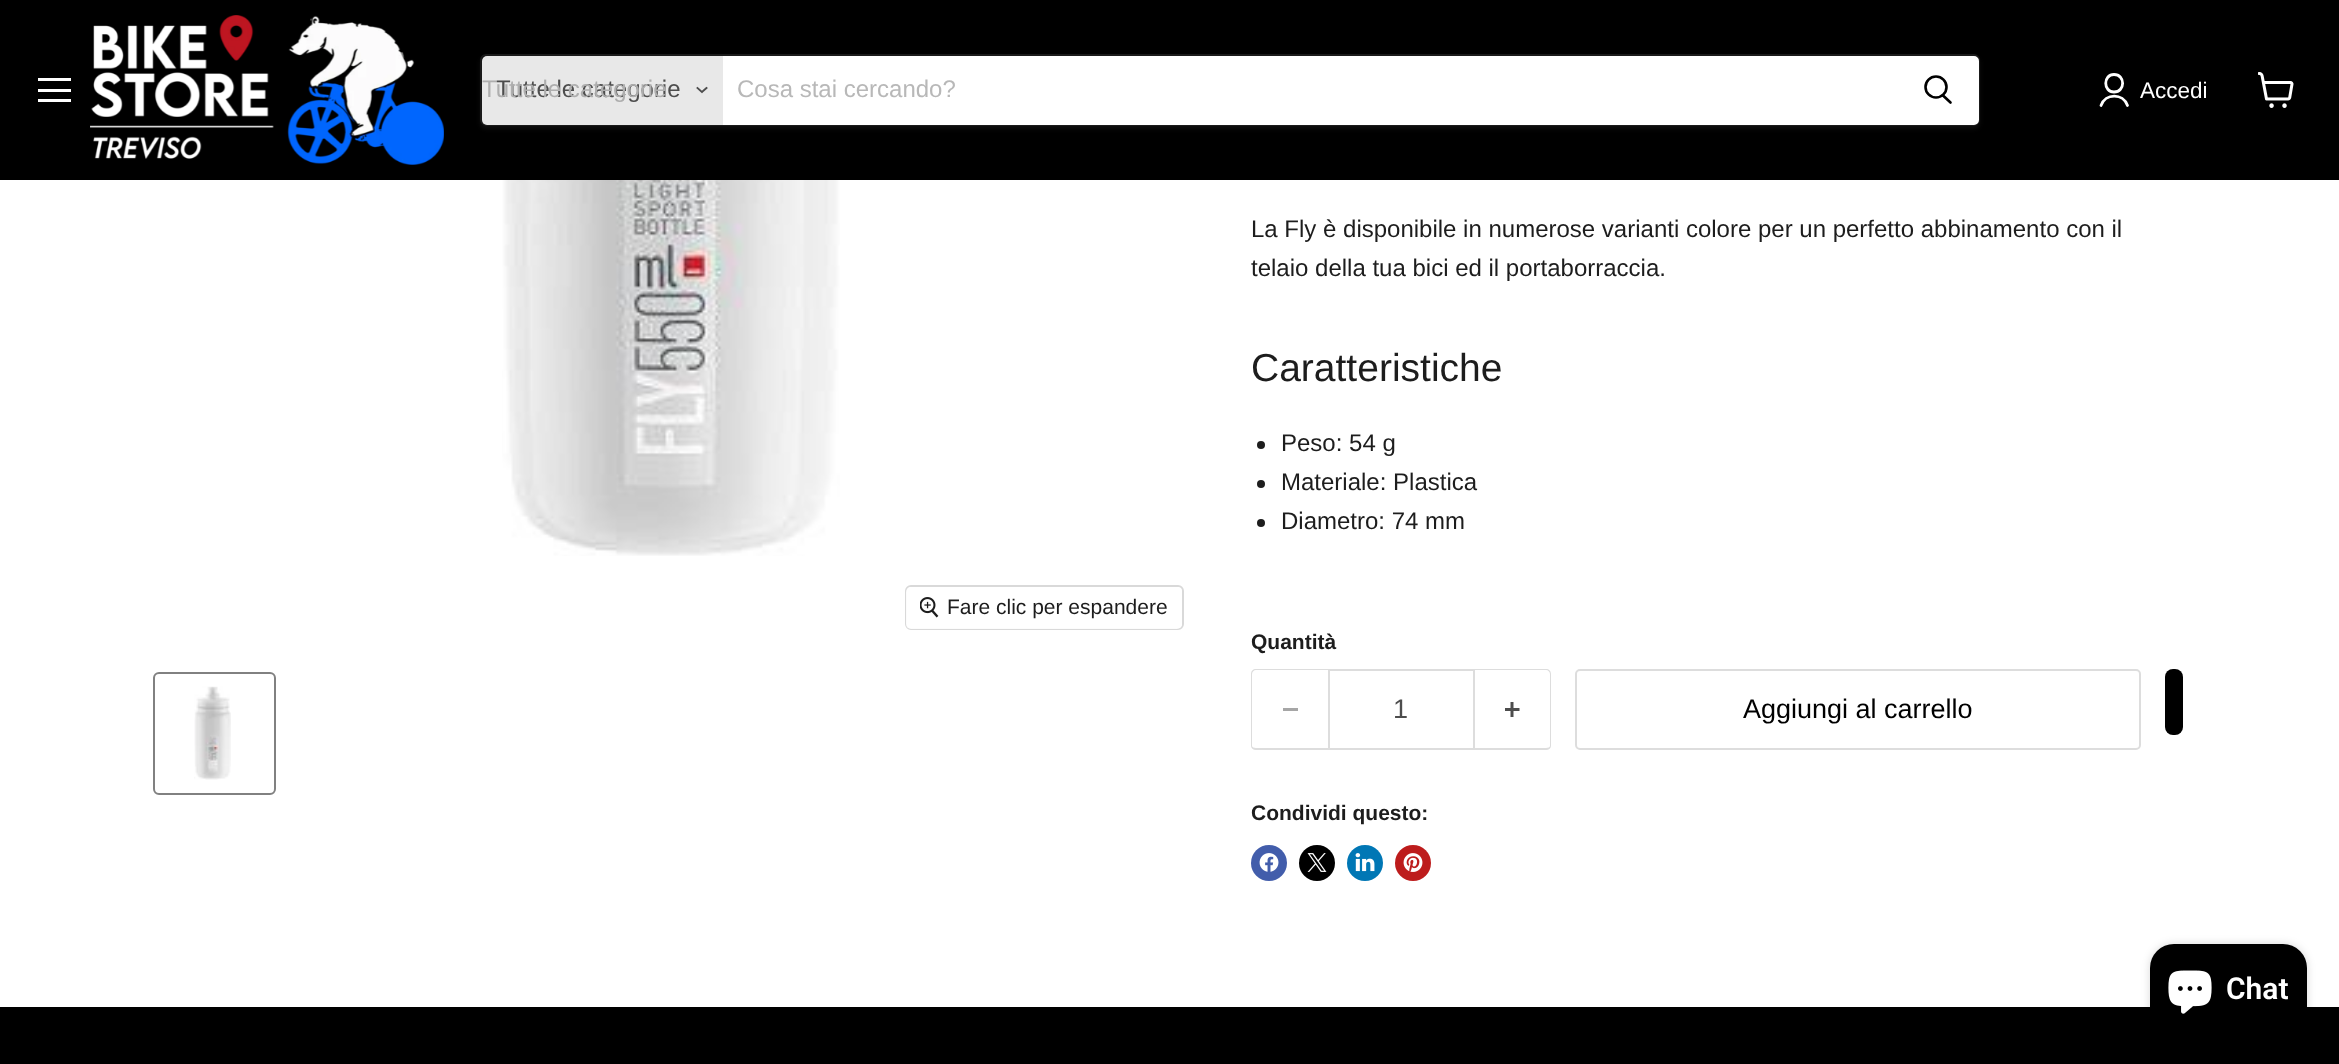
async function draw(canvas) {
  canvas.width = 2339;
  canvas.height = 1064;
  const ctx = canvas.getContext('2d');
  ctx.miterLimit = 4;
  ctx.fontKerning = 'normal';
  function label(s, x, y, font, color) {
    ctx.font = font;
    ctx.fillStyle = color;
    ctx.fillText(s, x, y);
  }
  function rect(x, y, w, h, color) {
    ctx.fillStyle = color;
    ctx.fillRect(x, y, w, h);
  }
  function roundedRect(x, y, w, h, r, color) {
    ctx.fillStyle = color;
    ctx.beginPath();
    ctx.roundRect(x, y, w, h, r);
    ctx.fill();
  }
  async function image(src, x, y, w, h) {
    const img = new Image();
    img.src = src;
    await img.decode();
    ctx.drawImage(img, x, y, w, h);
  }
  let path;

  rect(0, 0, 2339, 1064, '#fff');
  rect(0, 0, 2339, 180, '#000');
  rect(38, 78, 33, 3, '#fff');
  rect(38, 89, 33, 3, '#fff');
  rect(38, 99, 33, 3, '#fff');
  await image('assets/img1.png', 90, 15, 354, 150);
  ctx.save();
  path = new Path2D('M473 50H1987V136H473ZM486 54H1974C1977.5 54 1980 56.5 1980 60V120C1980 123.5 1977.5 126 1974 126H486C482.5 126 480 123.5 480 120V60C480 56.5 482.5 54 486 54Z');
  ctx.clip(path, 'evenodd');
  ctx.fillStyle = '#8080801c';
  ctx.filter = 'blur(2px)';
  ctx.beginPath();
  ctx.roundRect(480, 57, 1500, 72, 6);
  ctx.fill();
  ctx.filter = 'none';
  ctx.restore();
  ctx.beginPath();
  ctx.roundRect(481, 55, 1498, 70, 5);
  ctx.strokeStyle = '#80808033';
  ctx.lineWidth = 2;
  ctx.stroke();
  ctx.fillStyle = '#e8e8e8';
  ctx.beginPath();
  ctx.roundRect(482, 56, 241, 69, [5, 0, 0, 5]);
  ctx.fill();
  label('Tutte le categorie', 496, 97, '24px Liberation Sans', '#4d4d4d');
  label('Tutte le categorie', 482, 97, '24px Liberation Sans', '#aeaeae');
  path = new Path2D('M702 92L706.5 88M702 92L697.5 88');
  ctx.strokeStyle = '#4d4d4d';
  ctx.lineWidth = 1.9;
  ctx.lineCap = 'square';
  ctx.stroke(path);
  rect(723, 56, 1175, 69, '#fff');
  label('Cosa stai cercando?', 737, 97, '24px Liberation Sans', '#b8b8b8');
  ctx.fillStyle = '#fff';
  ctx.beginPath();
  ctx.roundRect(1899, 57, 79, 67, [0, 4, 4, 0]);
  ctx.fill();
  ctx.strokeStyle = '#fff';
  ctx.lineWidth = 2;
  ctx.stroke();
  path = new Path2D('M1950.5 102.5L1943 95.5');
  ctx.strokeStyle = '#000';
  ctx.lineWidth = 2.6;
  ctx.lineCap = 'round';
  ctx.stroke(path);
  ctx.beginPath();
  ctx.arc(1936, 87, 10.5, 0, 2 * Math.PI);
  ctx.stroke();
  path = new Path2D('M2114 92C2125.5 92 2125.5 74.5 2114 74.5C2103 74.5 2103 92 2114 92ZM2127.5 105.5C2123 93 2105.5 93 2101 105.5');
  ctx.strokeStyle = '#fff';
  ctx.lineWidth = 2.8;
  ctx.lineJoin = 'round';
  ctx.stroke(path);
  label('Accedi', 2140, 98, '22.5px Liberation Sans', '#fff');
  await image('assets/img2.png', 2258, 72, 36, 36);
  await image('assets/img3.png', 502, 180, 338, 376);
  ctx.beginPath();
  ctx.roundRect(906, 586, 277, 43, 5);
  ctx.strokeStyle = '#d9d9d9';
  ctx.lineWidth = 2;
  ctx.lineJoin = 'miter';
  ctx.stroke();
  roundedRect(906, 587, 276, 42, 5, '#ffffffe6');
  await image('assets/img4.png', 920, 597, 19, 21);
  label('Fare clic per espandere', 947, 614, '21px Liberation Sans', '#1d1d1d');
  ctx.beginPath();
  ctx.roundRect(154, 673, 121, 121, 5);
  ctx.strokeStyle = '#818181';
  ctx.stroke();
  await image('assets/img5.png', 194, 686, 37, 94);
  label('La Fly è disponibile in numerose varianti colore per un perfetto abbinamento con il', 1251, 237, '24px Liberation Sans', '#1d1d1d');
  label('telaio della tua bici ed il portaborraccia.', 1251, 276, '24px Liberation Sans', '#1d1d1d');
  label('Caratteristiche', 1251, 381, '39px Liberation Sans', '#1d1d1d');
  ctx.beginPath();
  ctx.arc(1261, 445, 4, 0, 2 * Math.PI);
  ctx.fill();
  label('Peso: 54 g', 1281, 451, '24px Liberation Sans', '#1d1d1d');
  ctx.beginPath();
  ctx.arc(1261, 484, 4, 0, 2 * Math.PI);
  ctx.fill();
  label('Materiale: Plastica', 1281, 490, '24px Liberation Sans', '#1d1d1d');
  ctx.beginPath();
  ctx.arc(1261, 523, 4, 0, 2 * Math.PI);
  ctx.fill();
  label('Diametro: 74 mm', 1281, 529, '24px Liberation Sans', '#1d1d1d');
  label('Quantità', 1251, 649, 'bold 21px Liberation Sans', '#1d1d1d');
  ctx.fillStyle = '#ddd';
  path = new Path2D('M1256 669H1328V750H1256C1253 750 1251 748 1251 746V674C1251 671 1253 669 1256 669ZM1256 670H1328V748H1256C1254 748 1252 747 1252 746V674C1252 672 1254 670 1256 670Z');
  ctx.fill(path, 'evenodd');
  rect(1283, 708, 15, 3, '#a6a6a6');
  ctx.strokeStyle = '#ddd';
  ctx.strokeRect(1329, 670, 145, 79);
  label('1', 1393, 718, '27px Liberation Sans', '#4d4d4d');
  ctx.fillStyle = '#ddd';
  path = new Path2D('M1474 669H1546C1549 669 1551 671 1551 674V746C1551 748 1549 750 1546 750H1474ZM1474 670H1546C1548 670 1550 672 1550 674V746C1550 747 1548 748 1546 748H1474Z');
  ctx.fill(path, 'evenodd');
  await image('assets/img6.png', 1505, 702, 15, 15);
  ctx.beginPath();
  ctx.roundRect(1576, 670, 564, 79, 4);
  ctx.stroke();
  label('Aggiungi al carrello', 1743, 718, '27px Liberation Sans', '#000');
  roundedRect(2165, 669, 18, 66, 8, '#000');
  label('Condividi questo:', 1251, 820, 'bold 21px Liberation Sans', '#1d1d1d');
  ctx.fillStyle = '#425dab';
  ctx.beginPath();
  ctx.arc(1269, 863, 18, 0, 2 * Math.PI);
  ctx.fill();
  await image('assets/img7.png', 1259, 853, 20, 19);
  ctx.fillStyle = '#000';
  ctx.beginPath();
  ctx.arc(1317, 863, 18, 0, 2 * Math.PI);
  ctx.fill();
  await image('assets/img8.png', 1307, 853, 20, 19);
  ctx.fillStyle = '#0077b5';
  ctx.beginPath();
  ctx.arc(1365, 863, 18, 0, 2 * Math.PI);
  ctx.fill();
  await image('assets/img9.png', 1355, 853, 20, 19);
  ctx.fillStyle = '#bd1c1c';
  ctx.beginPath();
  ctx.arc(1413, 863, 18, 0, 2 * Math.PI);
  ctx.fill();
  await image('assets/img10.png', 1403, 853, 20, 19);
  rect(0, 1007, 2339, 57, '#000');
  ctx.fillStyle = '#00000026';
  ctx.filter = 'blur(4px)';
  ctx.beginPath();
  ctx.roundRect(2150, 944, 157, 90, 24);
  ctx.fill();
  ctx.filter = 'none';
  roundedRect(2150, 944, 157, 90, 24, '#000');
  await image('assets/img11.png', 2168, 970, 44, 44);
  label('Chat', 2226, 999, '600 30px Roboto', '#fff');
}

draw(document.querySelector('canvas'));
